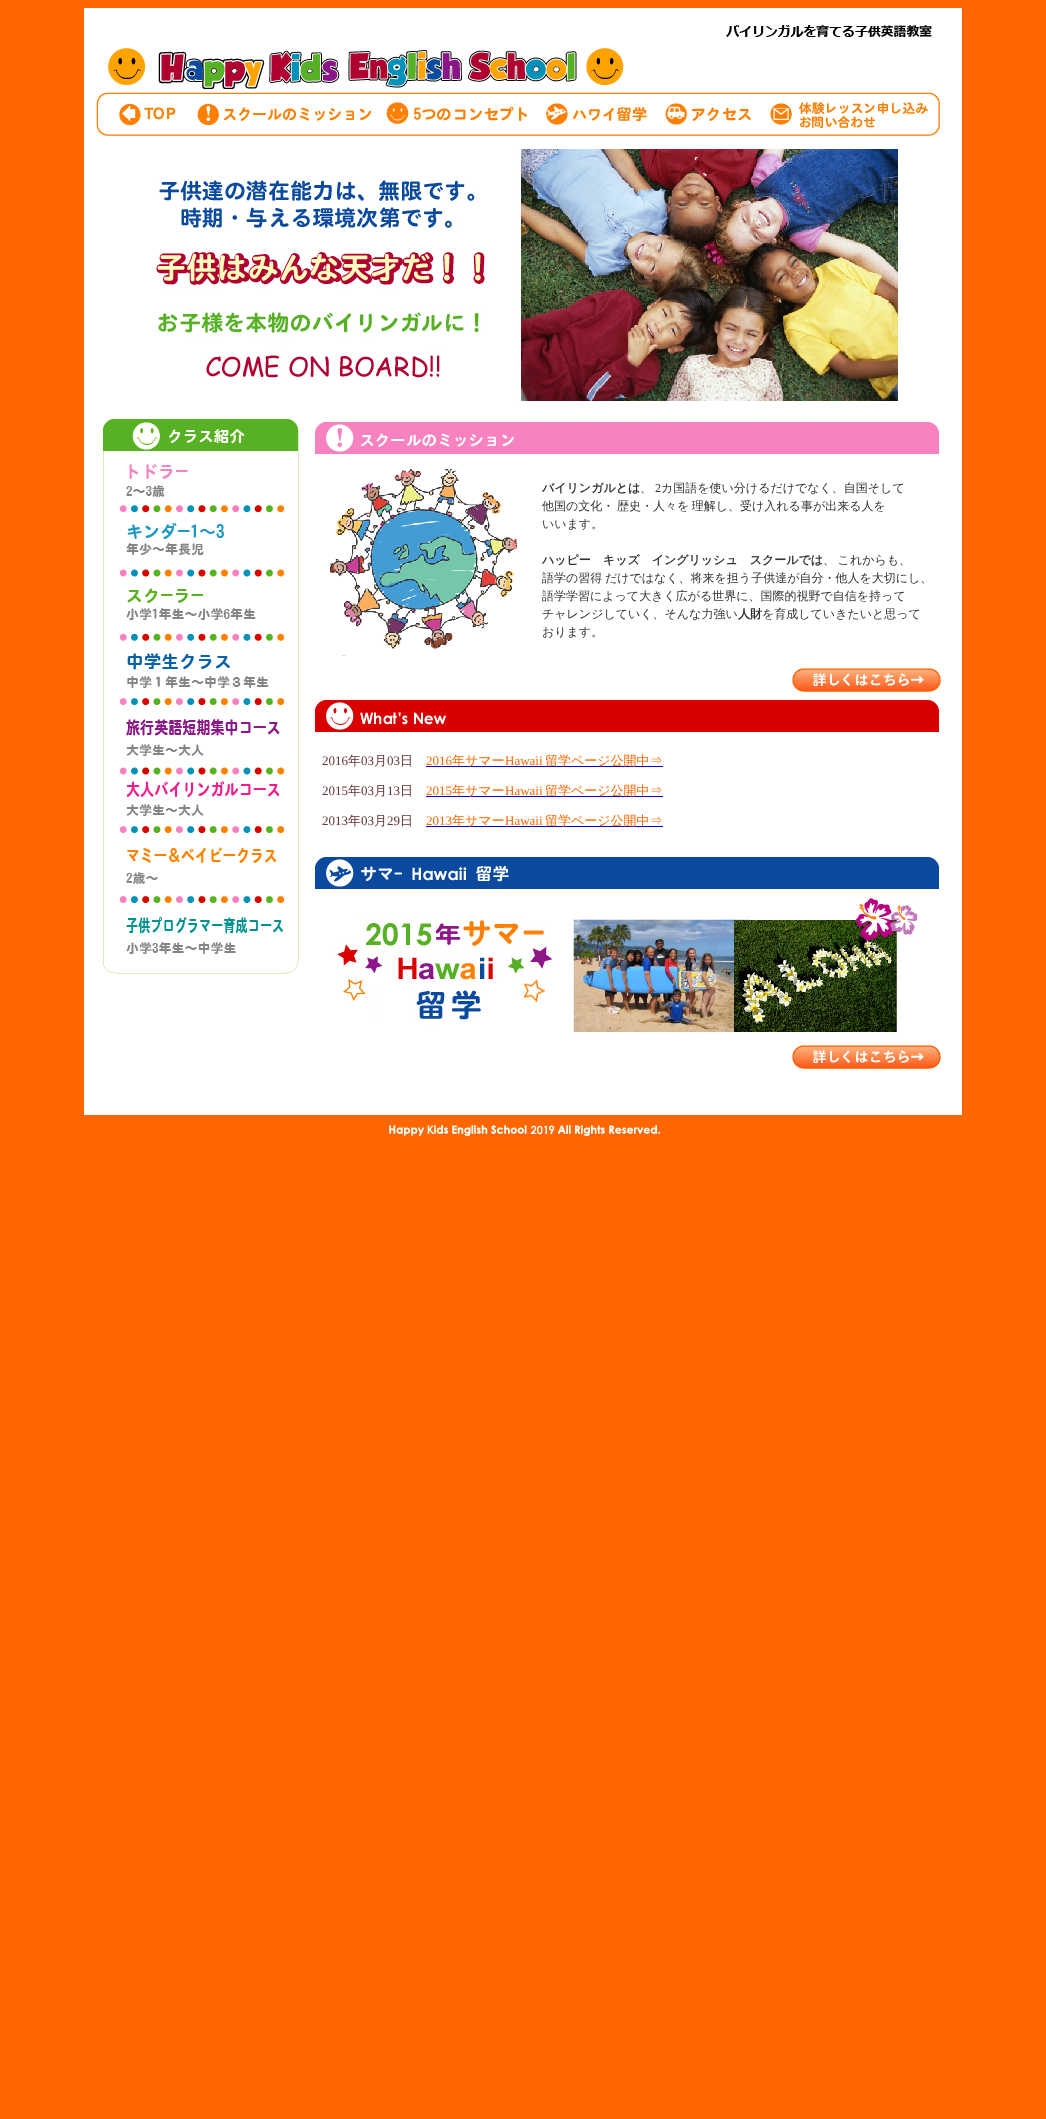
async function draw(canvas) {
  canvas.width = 1046;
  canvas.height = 2119;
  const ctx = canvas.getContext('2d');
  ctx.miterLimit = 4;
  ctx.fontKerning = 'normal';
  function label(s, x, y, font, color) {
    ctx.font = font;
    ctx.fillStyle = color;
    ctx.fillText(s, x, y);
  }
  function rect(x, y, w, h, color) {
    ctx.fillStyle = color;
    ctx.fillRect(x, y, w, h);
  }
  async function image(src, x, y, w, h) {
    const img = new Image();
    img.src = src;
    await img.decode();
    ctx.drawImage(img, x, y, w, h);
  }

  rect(0, 0, 1046, 2119, '#f60');
  rect(84, 8, 878, 1107, '#fff');
  await image('assets/img1.png', 96, 25, 844, 111);
  await image('assets/img2.png', 156, 149, 743, 252);
  await image('assets/img3.png', 103, 419, 196, 555);
  await image('assets/img4.png', 315, 422, 625, 32);
  await image('assets/img5.png', 330, 469, 187, 187);
  label('バイリンガルとは', 542, 492, 'bold 12px WenQuanYi Zen Hei', '#333');
  label('2', 655, 492, '12px Liberation Serif', '#333');
  label('カ国語を使い分けるだけでなく、自国そして', 661, 492, '500 12px WenQuanYi Zen Hei', '#333');
  label('、', 640, 492, '500 12px WenQuanYi Zen Hei', '#333');
  ctx.wordSpacing = '-1px';
  label('他国の文化・ 歴史・人々を 理解し、受け入れる事が出来る人を', 542, 510, '500 12px WenQuanYi Zen Hei', '#333');
  ctx.wordSpacing = '0px';
  label('いいます。', 542, 528, '500 12px WenQuanYi Zen Hei', '#333');
  label('ハッピー　キッズ　イングリッシュ　スクールでは', 542, 564, 'bold 12px WenQuanYi Zen Hei', '#333');
  ctx.wordSpacing = '-1px';
  label('、 これからも、', 823, 564, '500 12px WenQuanYi Zen Hei', '#333');
  label('語学の習得 だけではなく、将来を担う子供達が自分・他人を大切にし、', 542, 582, '500 12px WenQuanYi Zen Hei', '#333');
  ctx.wordSpacing = '0px';
  label('語学学習によって大きく広がる世界に、国際的視野で自信を持って', 542, 600, '500 12px WenQuanYi Zen Hei', '#333');
  label('チャレンジしていく、そんな力強い', 542, 618, '500 12px WenQuanYi Zen Hei', '#333');
  label('人財', 738, 618, 'bold 12px WenQuanYi Zen Hei', '#333');
  label('を育成していきたいと思って', 762, 618, '500 12px WenQuanYi Zen Hei', '#333');
  label('おります。', 542, 636, '500 12px WenQuanYi Zen Hei', '#333');
  await image('assets/img6.png', 792, 668, 149, 24);
  await image('assets/img7.png', 315, 700, 625, 32);
  label('2016', 322, 765, '13px Liberation Serif', '#633');
  label('年', 348, 765, '500 13px WenQuanYi Zen Hei', '#633');
  label('03', 361, 765, '13px Liberation Serif', '#633');
  label('月', 374, 765, '500 13px WenQuanYi Zen Hei', '#633');
  label('03', 387, 765, '13px Liberation Serif', '#633');
  label('日', 400, 765, '500 13px WenQuanYi Zen Hei', '#633');
  label('2016', 426, 765, '13px Liberation Serif', '#f60');
  rect(426, 766, 237, 1, '#00e');
  label('年サマー', 452, 765, '500 13px WenQuanYi Zen Hei', '#f60');
  label('Hawaii', 505, 765, '13px Liberation Serif', '#f60');
  label('留学ページ公開中⇒', 545, 765, '500 13px WenQuanYi Zen Hei', '#f60');
  label('2015', 322, 795, '13px Liberation Serif', '#633');
  label('年', 348, 795, '500 13px WenQuanYi Zen Hei', '#633');
  label('03', 361, 795, '13px Liberation Serif', '#633');
  label('月', 374, 795, '500 13px WenQuanYi Zen Hei', '#633');
  label('13', 387, 795, '13px Liberation Serif', '#633');
  label('日', 400, 795, '500 13px WenQuanYi Zen Hei', '#633');
  label('2015', 426, 795, '13px Liberation Serif', '#f60');
  rect(426, 796, 237, 1, '#00e');
  label('年サマー', 452, 795, '500 13px WenQuanYi Zen Hei', '#f60');
  label('Hawaii', 505, 795, '13px Liberation Serif', '#f60');
  label('留学ページ公開中⇒', 545, 795, '500 13px WenQuanYi Zen Hei', '#f60');
  label('2013', 322, 825, '13px Liberation Serif', '#633');
  label('年', 348, 825, '500 13px WenQuanYi Zen Hei', '#633');
  label('03', 361, 825, '13px Liberation Serif', '#633');
  label('月', 374, 825, '500 13px WenQuanYi Zen Hei', '#633');
  label('29', 387, 825, '13px Liberation Serif', '#633');
  label('日', 400, 825, '500 13px WenQuanYi Zen Hei', '#633');
  label('2013', 426, 825, '13px Liberation Serif', '#f60');
  rect(426, 826, 237, 1, '#00e');
  label('年サマー', 452, 825, '500 13px WenQuanYi Zen Hei', '#f60');
  label('Hawaii', 505, 825, '13px Liberation Serif', '#f60');
  label('留学ページ公開中⇒', 545, 825, '500 13px WenQuanYi Zen Hei', '#f60');
  await image('assets/img8.png', 315, 857, 625, 32);
  await image('assets/img9.png', 333, 894, 587, 144);
  await image('assets/img6.png', 792, 1045, 149, 24);
  await image('assets/img10.png', 389, 1125, 271, 11);
}

draw(document.querySelector('canvas'));
